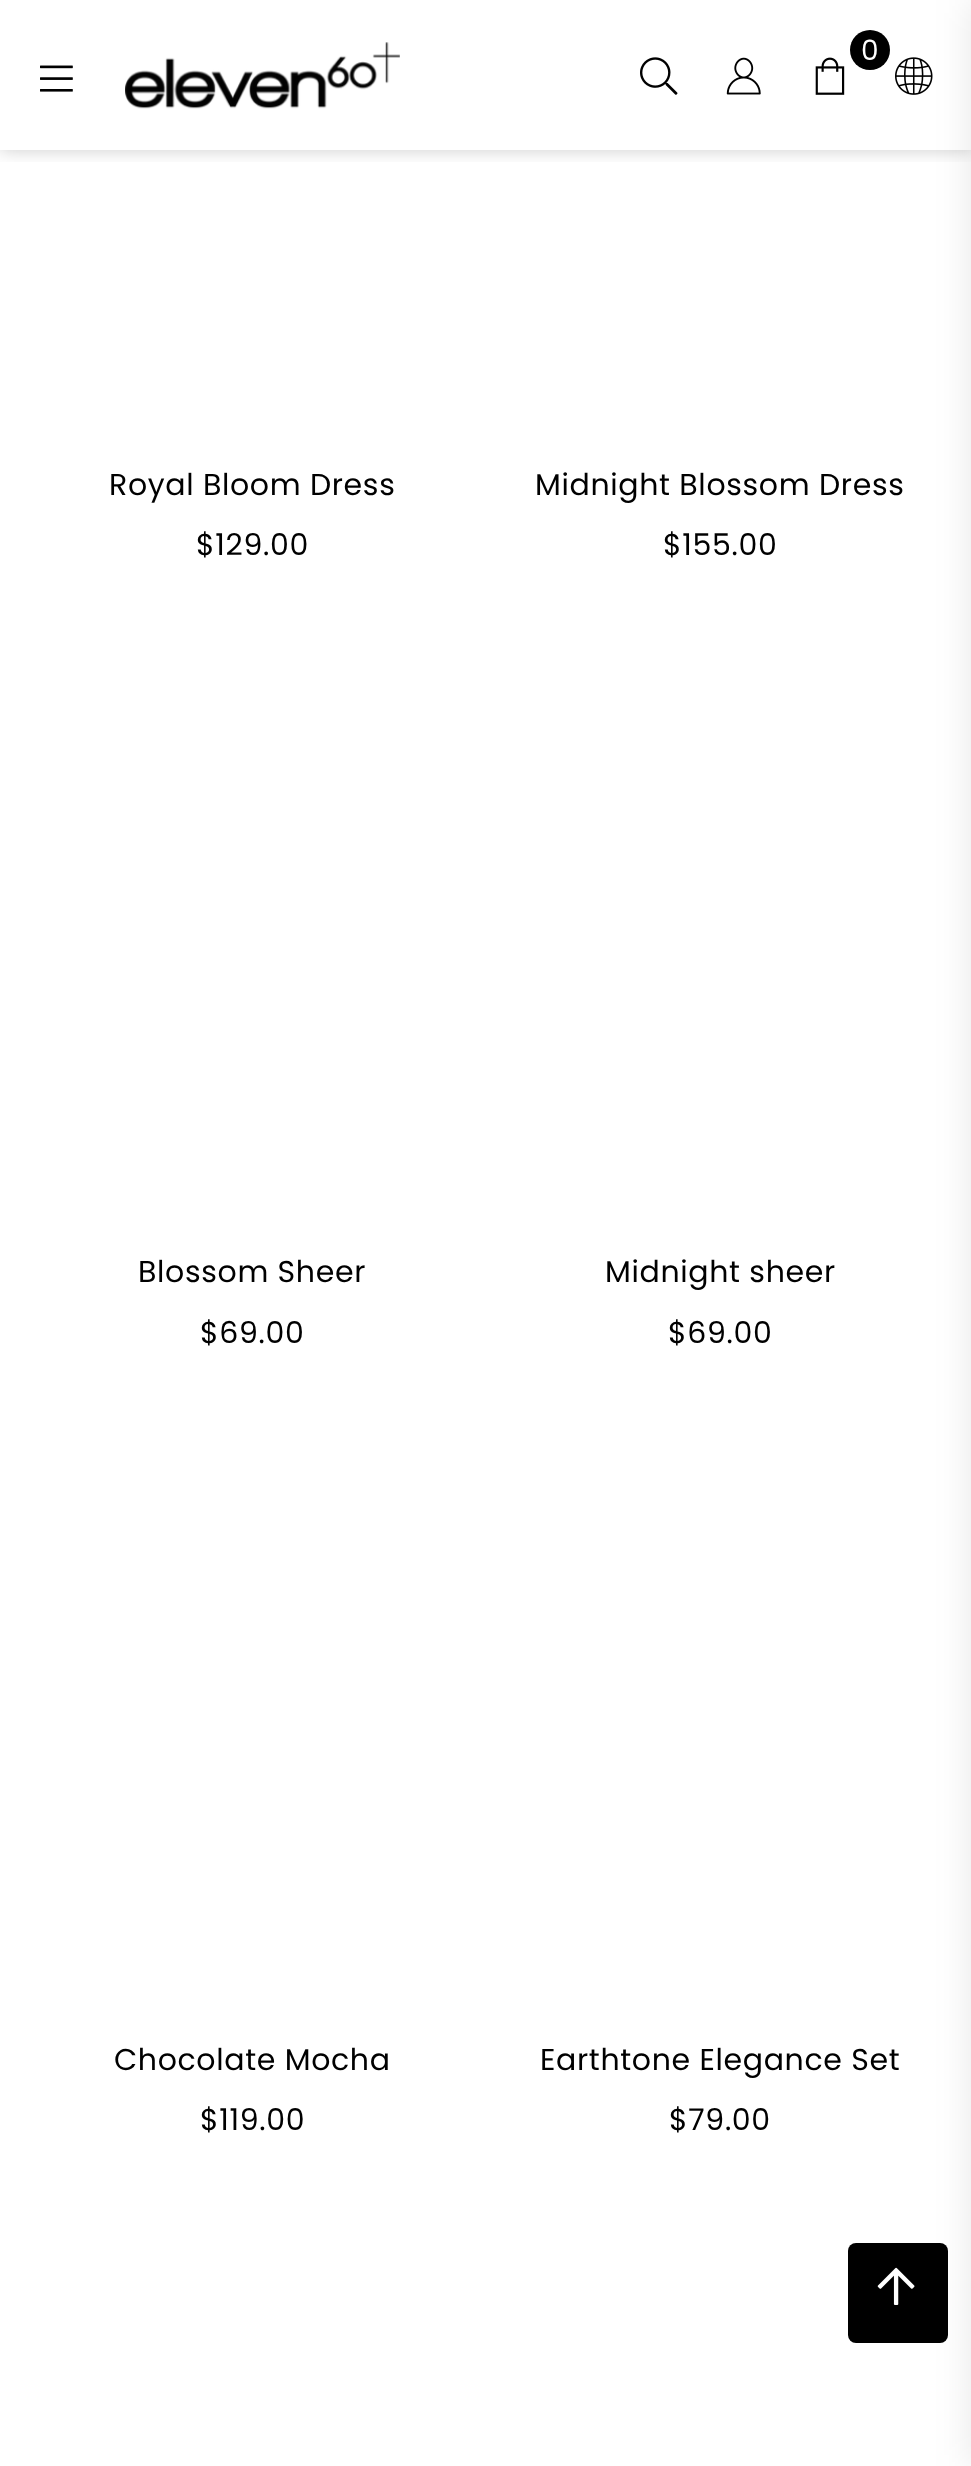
async function draw(canvas) {
  canvas.width = 971;
  canvas.height = 2466;
  const ctx = canvas.getContext('2d');
  ctx.miterLimit = 4;
  ctx.fontKerning = 'normal';
  function label(s, x, y, font, color) {
    ctx.font = font;
    ctx.fillStyle = color;
    ctx.fillText(s, x, y);
  }
  function rect(x, y, w, h, color) {
    ctx.fillStyle = color;
    ctx.fillRect(x, y, w, h);
  }
  function roundedRect(x, y, w, h, r, color) {
    ctx.fillStyle = color;
    ctx.beginPath();
    ctx.roundRect(x, y, w, h, r);
    ctx.fill();
  }
  async function image(src, x, y, w, h) {
    const img = new Image();
    img.src = src;
    await img.decode();
    ctx.drawImage(img, x, y, w, h);
  }

  rect(0, 0, 971, 2466, '#fff');
  ctx.save();
  ctx.beginPath();
  ctx.rect(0, 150, 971, 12);
  ctx.clip();
  ctx.fillStyle = '#00000033';
  ctx.filter = 'blur(9px)';
  ctx.beginPath();
  ctx.rect(0, 0, 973, 150);
  ctx.fill();
  ctx.filter = 'none';
  ctx.restore();
  await image('assets/img1.png', 40, 65, 33, 27);
  await image('assets/img2.png', 125, 42, 275, 67);
  ctx.fillStyle = '#000';
  ctx.beginPath();
  ctx.arc(870, 50, 20, 0, 2 * Math.PI);
  ctx.fill();
  ctx.letterSpacing = '0.65px';
  label('0', 861, 60, '28px Poppins', '#fff');
  await image('assets/img3.png', 815, 57, 30, 38);
  await image('assets/img4.png', 640, 57, 38, 38);
  await image('assets/img5.png', 726, 57, 35, 38);
  await image('assets/img6.png', 895, 57, 38, 38);
  roundedRect(848, 2243, 100, 100, 8, '#000');
  ctx.fillStyle = '#0000001a';
  ctx.filter = 'blur(19px)';
  ctx.beginPath();
  ctx.rect(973, 0, 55, 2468);
  ctx.fill();
  ctx.filter = 'none';
  label('Royal Bloom Dress', 109, 495, '30px Poppins', '#000');
  label('$129.00', 196, 555, '30px Poppins', '#000');
  label('Midnight Blossom Dress', 535, 495, '30px Poppins', '#000');
  label('$155.00', 663, 555, '30px Poppins', '#000');
  label('Blossom Sheer', 138, 1282, '30px Poppins', '#000');
  label('$69.00', 200, 1343, '30px Poppins', '#000');
  label('Midnight sheer', 605, 1282, '30px Poppins', '#000');
  label('$69.00', 668, 1343, '30px Poppins', '#000');
  label('Chocolate Mocha', 114, 2070, '30px Poppins', '#000');
  label('$119.00', 200, 2130, '30px Poppins', '#000');
  label('Earthtone Elegance Set', 540, 2070, '30px Poppins', '#000');
  label('$79.00', 669, 2130, '30px Poppins', '#000');
  await image('assets/img7.png', 877, 2267, 38, 38);
}

draw(document.querySelector('canvas'));
